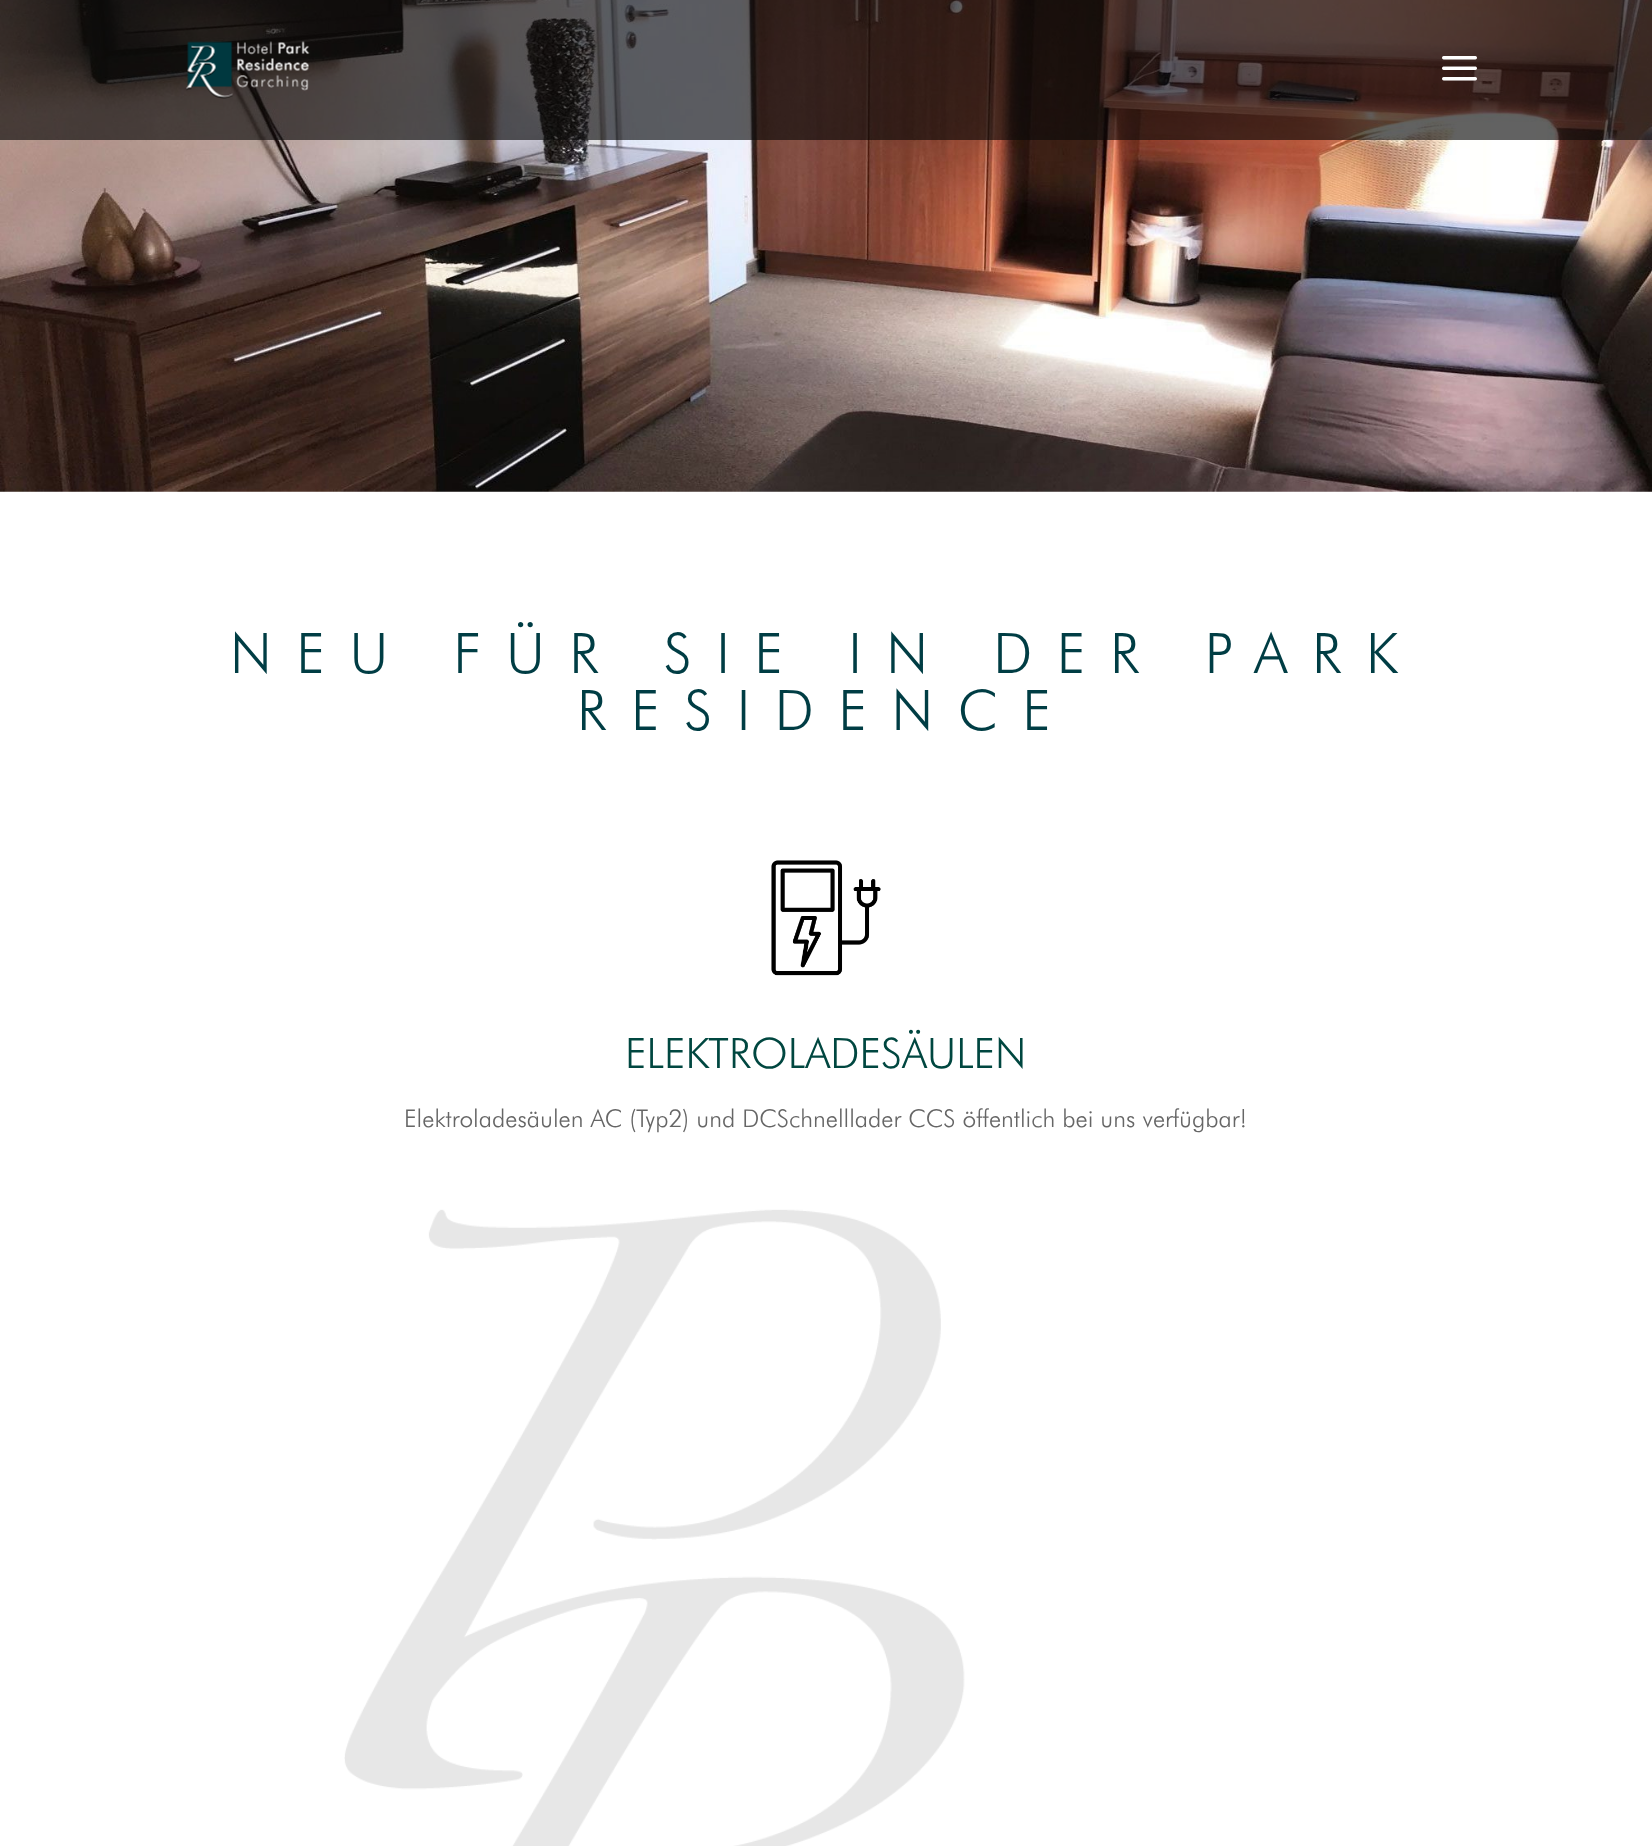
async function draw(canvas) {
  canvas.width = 1652;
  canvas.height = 1846;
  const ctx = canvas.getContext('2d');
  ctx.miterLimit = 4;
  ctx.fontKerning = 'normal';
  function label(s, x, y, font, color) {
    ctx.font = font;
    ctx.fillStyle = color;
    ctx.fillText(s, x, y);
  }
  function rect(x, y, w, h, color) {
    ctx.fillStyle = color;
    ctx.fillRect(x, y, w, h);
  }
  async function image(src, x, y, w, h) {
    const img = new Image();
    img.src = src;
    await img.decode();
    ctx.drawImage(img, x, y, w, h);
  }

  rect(0, 0, 1652, 1846, '#fff');
  await image('assets/img3.png', 0, 0, 1652, 492);
  rect(0, 0, 1652, 140, '#0a0a0aa3');
  await image('assets/img1.png', 186, 41, 124, 58);
  await image('assets/img2.png', 1442, 56, 35, 25);
  ctx.letterSpacing = '24.5px';
  label('NEU FÜR SIE IN DER PARK', 230, 673, '300 56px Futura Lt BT', '#003d44');
  label('RESIDENCE', 577, 730, '300 56px Futura Lt BT', '#003d44');
  await image('assets/img4.png', 771, 860, 110, 116);
  ctx.letterSpacing = '0px';
  label('ELEKTROLADESÄULEN', 625, 1068, '300 42px Futura Lt BT', '#004740');
  label('Elektroladesäulen AC (Typ2) und DCSchnelllader CCS öffentlich bei uns verfügbar!', 404, 1127, '300 24.5px Futura Lt BT', '#666');
  await image('assets/img5.png', 344, 1209, 621, 637);
}

draw(document.querySelector('canvas'));
